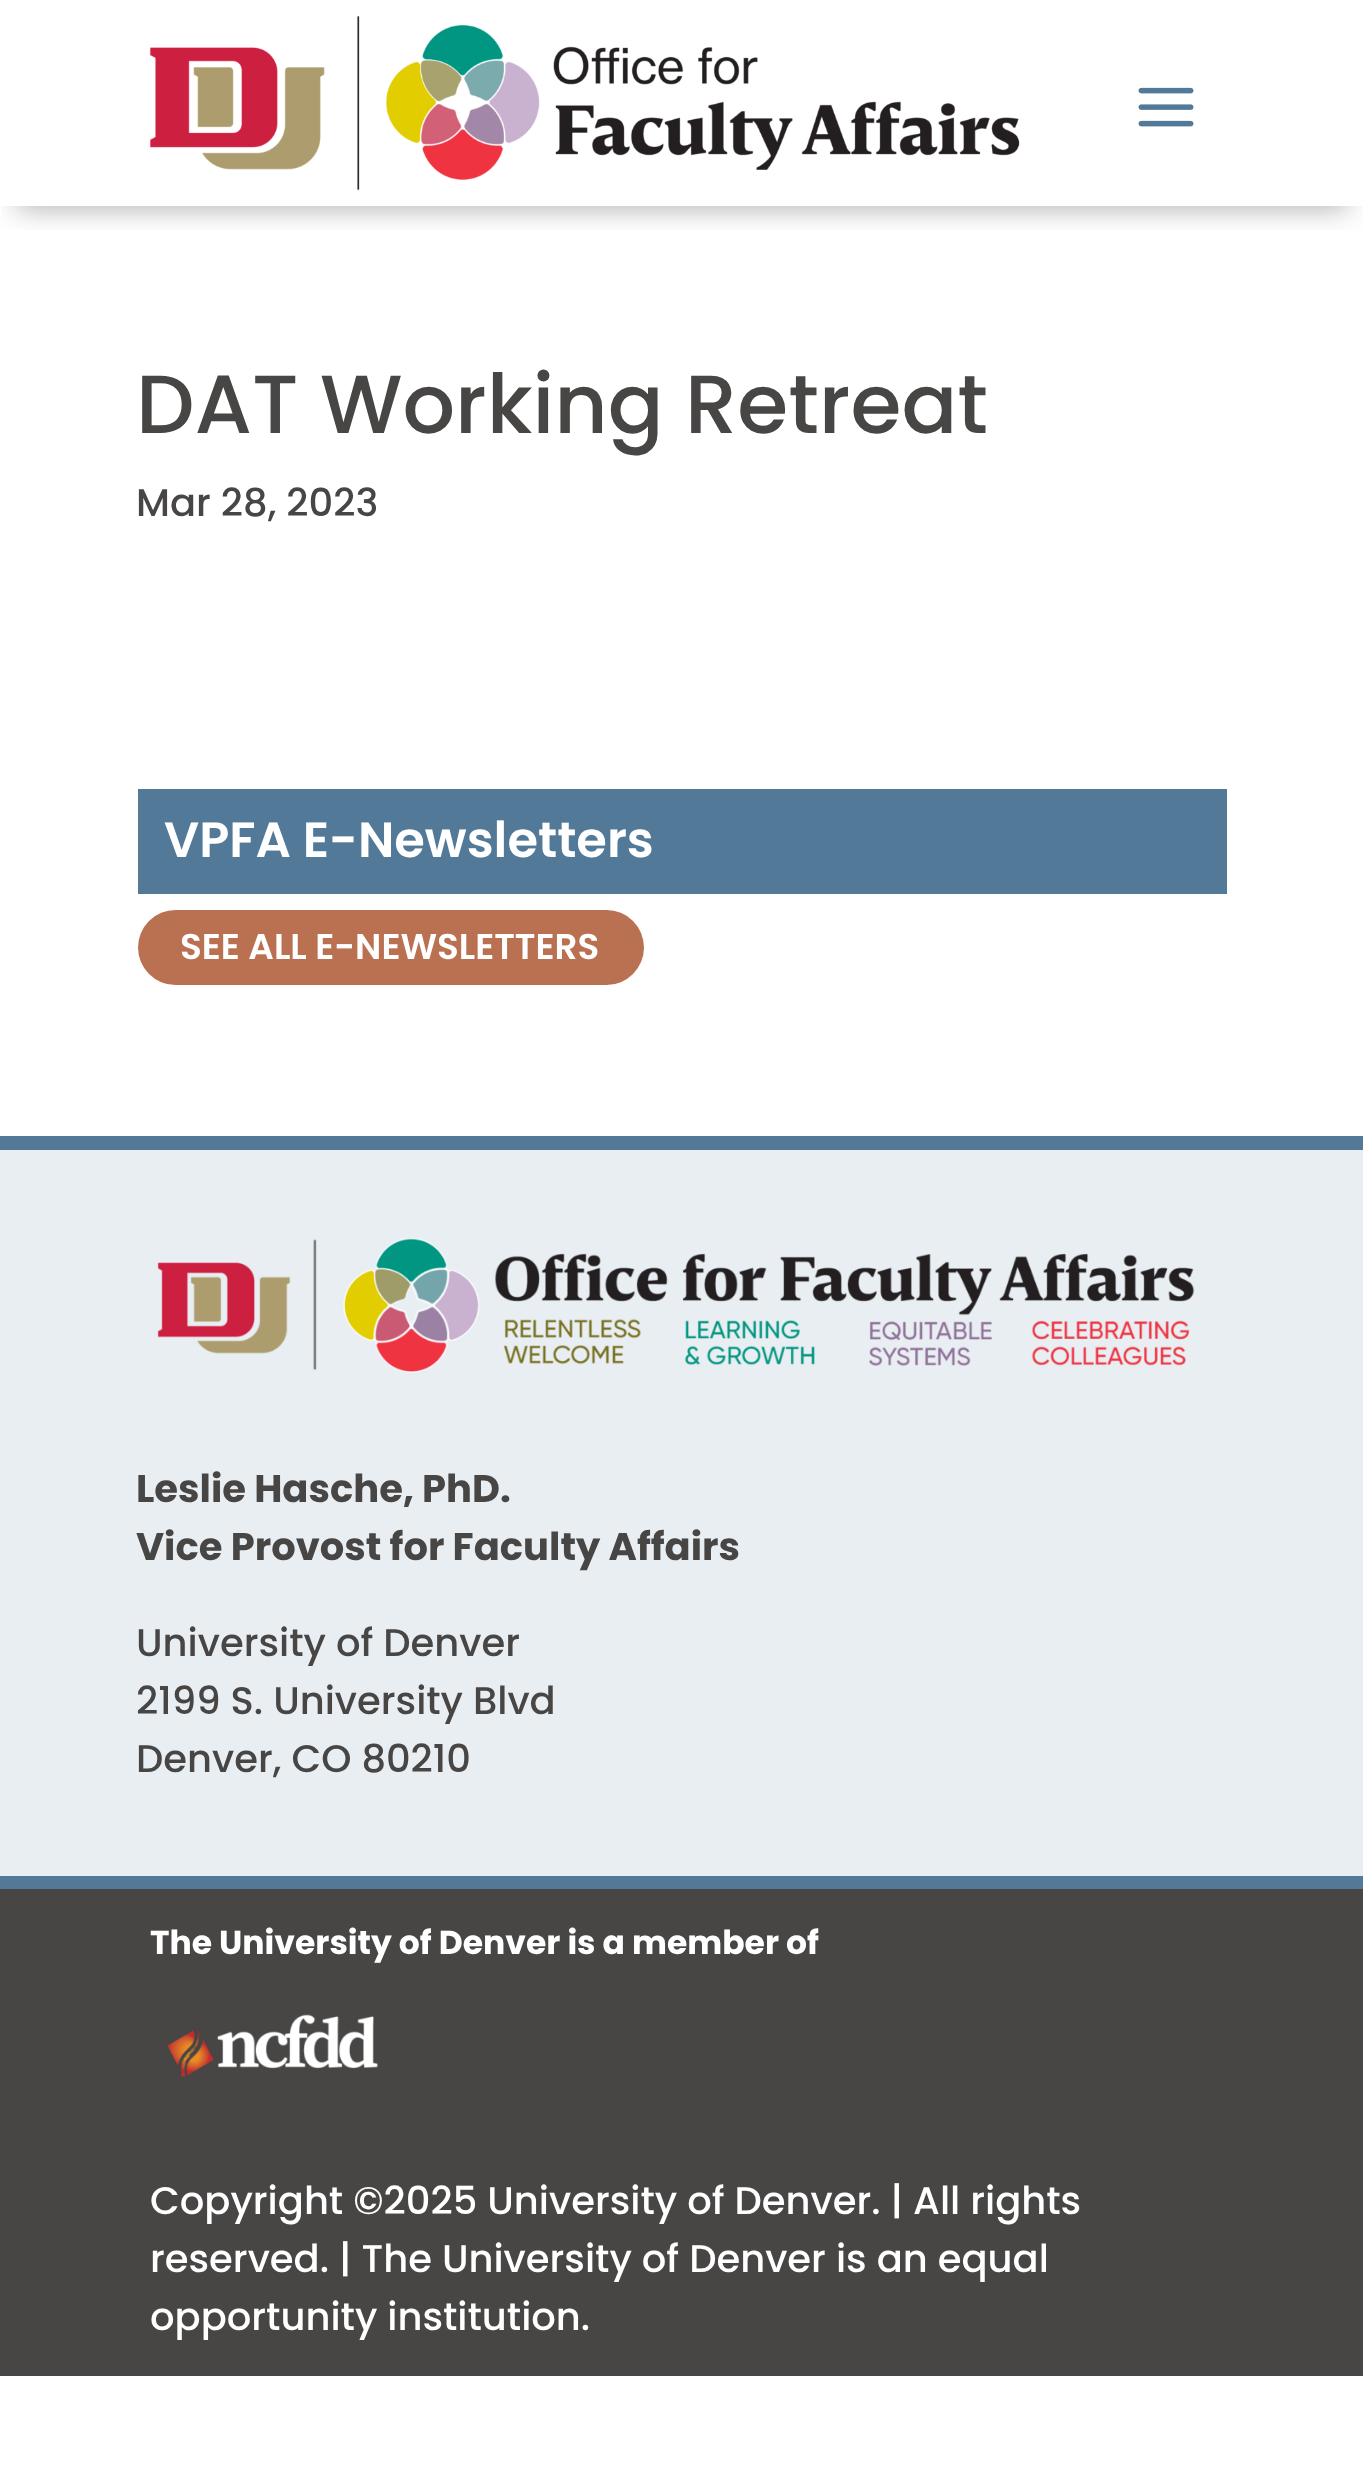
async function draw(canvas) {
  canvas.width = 1363;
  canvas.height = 2475;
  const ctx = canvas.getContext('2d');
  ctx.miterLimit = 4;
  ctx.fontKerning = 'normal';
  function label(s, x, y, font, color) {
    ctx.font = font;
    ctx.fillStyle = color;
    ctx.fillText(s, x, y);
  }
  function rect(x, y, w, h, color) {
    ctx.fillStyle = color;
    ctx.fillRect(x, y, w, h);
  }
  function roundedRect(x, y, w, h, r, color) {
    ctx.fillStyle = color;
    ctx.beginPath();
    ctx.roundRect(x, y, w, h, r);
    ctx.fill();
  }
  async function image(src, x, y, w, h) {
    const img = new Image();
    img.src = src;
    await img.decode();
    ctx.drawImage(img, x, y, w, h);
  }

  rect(0, 0, 1363, 2475, '#fff');
  ctx.save();
  ctx.beginPath();
  ctx.rect(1, 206, 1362, 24);
  ctx.clip();
  ctx.fillStyle = '#0000004d';
  ctx.filter = 'blur(14px)';
  ctx.beginPath();
  ctx.rect(17, 36, 1331, 173);
  ctx.fill();
  ctx.filter = 'none';
  ctx.restore();
  await image('assets/img1.png', 149, 16, 871, 175);
  await image('assets/img2.png', 1138, 87, 56, 40);
  label('DAT Working Retreat', 136, 433, '500 82.5px Poppins', '#474645');
  label('Mar 28, 2023', 136, 516, '500 38.5px Poppins', '#474645');
  rect(138, 789, 1089, 105, '#537999');
  label('VPFA E-Newsletters', 164, 857, '600 49.5px Poppins', '#fff');
  roundedRect(138, 910, 506, 75, 37.5, '#ba7152');
  label('SEE ALL E-NEWSLETTERS', 180, 959, '600 35.75px Poppins', '#fff');
  rect(0, 1150, 1363, 726, '#e9eef3');
  rect(0, 1136, 1363, 14, '#537999');
  await image('assets/img3.png', 157, 1238, 1038, 135);
  label('Leslie Hasche, PhD.', 136, 1502, 'bold 38.5px Poppins', '#474645');
  label('Vice Provost for Faculty Affairs', 136, 1560, 'bold 38.5px Poppins', '#474645');
  label('University of Denver', 136, 1656, '500 38.5px Poppins', '#474645');
  label('2199 S. University Blvd', 136, 1714, '500 38.5px Poppins', '#474645');
  label('Denver, CO 80210', 136, 1772, '500 38.5px Poppins', '#474645');
  rect(0, 1889, 1363, 487, '#474645');
  rect(0, 1876, 1363, 13, '#537999');
  label('The University of Denver is a member of', 150, 1954, 'bold 33px Poppins', '#fff');
  await image('assets/img4.png', 167, 2014, 211, 63);
  label('Copyright ©2025 University of Denver. | All rights', 150, 2214, '500 38.5px Poppins', '#fff');
  label('reserved. | The University of Denver is an equal', 150, 2272, '500 38.5px Poppins', '#fff');
  label('opportunity institution.', 150, 2330, '500 38.5px Poppins', '#fff');
}

draw(document.querySelector('canvas'));
